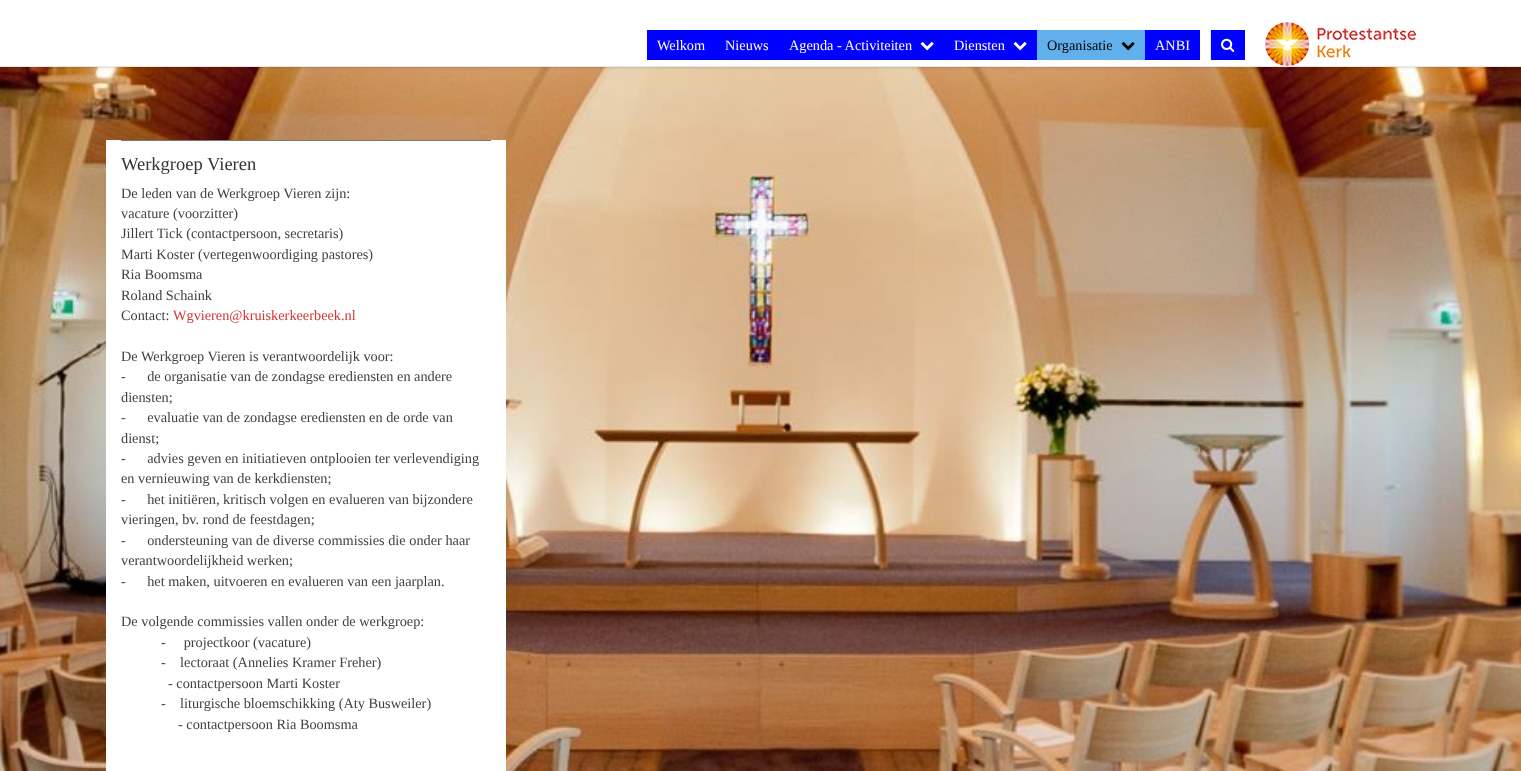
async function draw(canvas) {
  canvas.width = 1521;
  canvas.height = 771;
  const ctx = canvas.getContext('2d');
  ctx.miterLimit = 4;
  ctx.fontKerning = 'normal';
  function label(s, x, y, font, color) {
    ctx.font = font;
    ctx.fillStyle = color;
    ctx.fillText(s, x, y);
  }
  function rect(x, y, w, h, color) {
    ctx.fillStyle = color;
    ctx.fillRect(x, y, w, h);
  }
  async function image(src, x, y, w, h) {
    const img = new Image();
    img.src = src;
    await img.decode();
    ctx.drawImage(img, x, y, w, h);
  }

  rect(0, 0, 1521, 771, '#fff');
  await image('assets/img1.png', 0, 67, 1521, 704);
  ctx.fillStyle = '#00000038';
  ctx.filter = 'blur(1.5px)';
  ctx.beginPath();
  ctx.rect(0, 0, 1521, 67);
  ctx.fill();
  ctx.filter = 'none';
  rect(0, 0, 1521, 66, '#fff');
  rect(0, 66, 1521, 1, '#e7e7e7');
  rect(647, 30, 390, 30, '#00f');
  label('Welkom', 657, 50, '14.3px Liberation Serif', '#fff');
  label('Nieuws', 725, 50, '14.3px Liberation Serif', '#fff');
  label('Agenda - Activiteiten', 789, 50, '14.3px Liberation Serif', '#fff');
  await image('assets/img2.png', 920, 42, 14, 9);
  label('Diensten', 954, 50, '14.3px Liberation Serif', '#fff');
  await image('assets/img2.png', 1013, 42, 14, 9);
  rect(1037, 30, 108, 30, '#62b0eb');
  label('Organisatie', 1047, 50, '14.3px Liberation Serif', '#000');
  await image('assets/img3.png', 1121, 42, 14, 9);
  rect(1145, 30, 55, 30, '#00f');
  label('ANBI', 1155, 50, '14.3px Liberation Serif', '#fff');
  rect(1211, 30, 34, 30, '#00f');
  rect(1210, 30, 1, 30, '#e7e7e7');
  await image('assets/img4.png', 1221, 38, 14, 14);
  await image('assets/img5.png', 1265, 22, 151, 44);
  rect(106, 140, 400, 631, '#fff');
  rect(121, 140, 370, 1, '#777');
  label('Werkgroep Vieren', 121, 170, '18.5px Liberation Serif', '#333');
  label('De leden van de Werkgroep Vieren zijn:', 121, 198, '14.3px Liberation Serif', '#414141');
  label('vacature (voorzitter)', 121, 218, '14.3px Liberation Serif', '#414141');
  label('Jillert Tick (contactpersoon, secretaris)', 121, 238, '14.3px Liberation Serif', '#414141');
  label('Marti Koster (vertegenwoordiging pastores)', 121, 259, '14.3px Liberation Serif', '#414141');
  label('Ria Boomsma', 121, 279, '14.3px Liberation Serif', '#414141');
  label('Roland Schaink', 121, 300, '14.3px Liberation Serif', '#414141');
  label('Contact:', 121, 320, '14.3px Liberation Serif', '#414141');
  label('Wgvieren@kruiskerkeerbeek.nl', 173, 320, '14.3px Liberation Serif', '#d03735');
  label('De Werkgroep Vieren is verantwoordelijk voor:', 121, 361, '14.3px Liberation Serif', '#414141');
  label('-      de organisatie van de zondagse erediensten en andere', 121, 381, '14.3px Liberation Serif', '#414141');
  label('diensten;', 121, 402, '14.3px Liberation Serif', '#414141');
  label('-      evaluatie van de zondagse erediensten en de orde van', 121, 422, '14.3px Liberation Serif', '#414141');
  label('dienst;', 121, 443, '14.3px Liberation Serif', '#414141');
  label('-      advies geven en initiatieven ontplooien ter verlevendiging', 121, 463, '14.3px Liberation Serif', '#414141');
  label('en vernieuwing van de kerkdiensten;', 121, 483, '14.3px Liberation Serif', '#414141');
  label('-      het initiëren, kritisch volgen en evalueren van bijzondere', 121, 504, '14.3px Liberation Serif', '#414141');
  label('vieringen, bv. rond de feestdagen;', 121, 524, '14.3px Liberation Serif', '#414141');
  label('-      ondersteuning van de diverse commissies die onder haar', 121, 545, '14.3px Liberation Serif', '#414141');
  label('verantwoordelijkheid werken;', 121, 565, '14.3px Liberation Serif', '#414141');
  label('-      het maken, uitvoeren en evalueren van een jaarplan.', 121, 586, '14.3px Liberation Serif', '#414141');
  label('De volgende commissies vallen onder de werkgroep:', 121, 626, '14.3px Liberation Serif', '#414141');
  label('-  projectkoor (vacature)', 161, 647, '14.3px Liberation Serif', '#414141');
  label('- lectoraat (Annelies Kramer Freher)', 161, 667, '14.3px Liberation Serif', '#414141');
  label('- contactpersoon Marti Koster', 168, 688, '14.3px Liberation Serif', '#414141');
  label('- liturgische bloemschikking (Aty Busweiler)', 161, 708, '14.3px Liberation Serif', '#414141');
  label('- contactpersoon Ria Boomsma', 178, 729, '14.3px Liberation Serif', '#414141');
}

draw(document.querySelector('canvas'));
